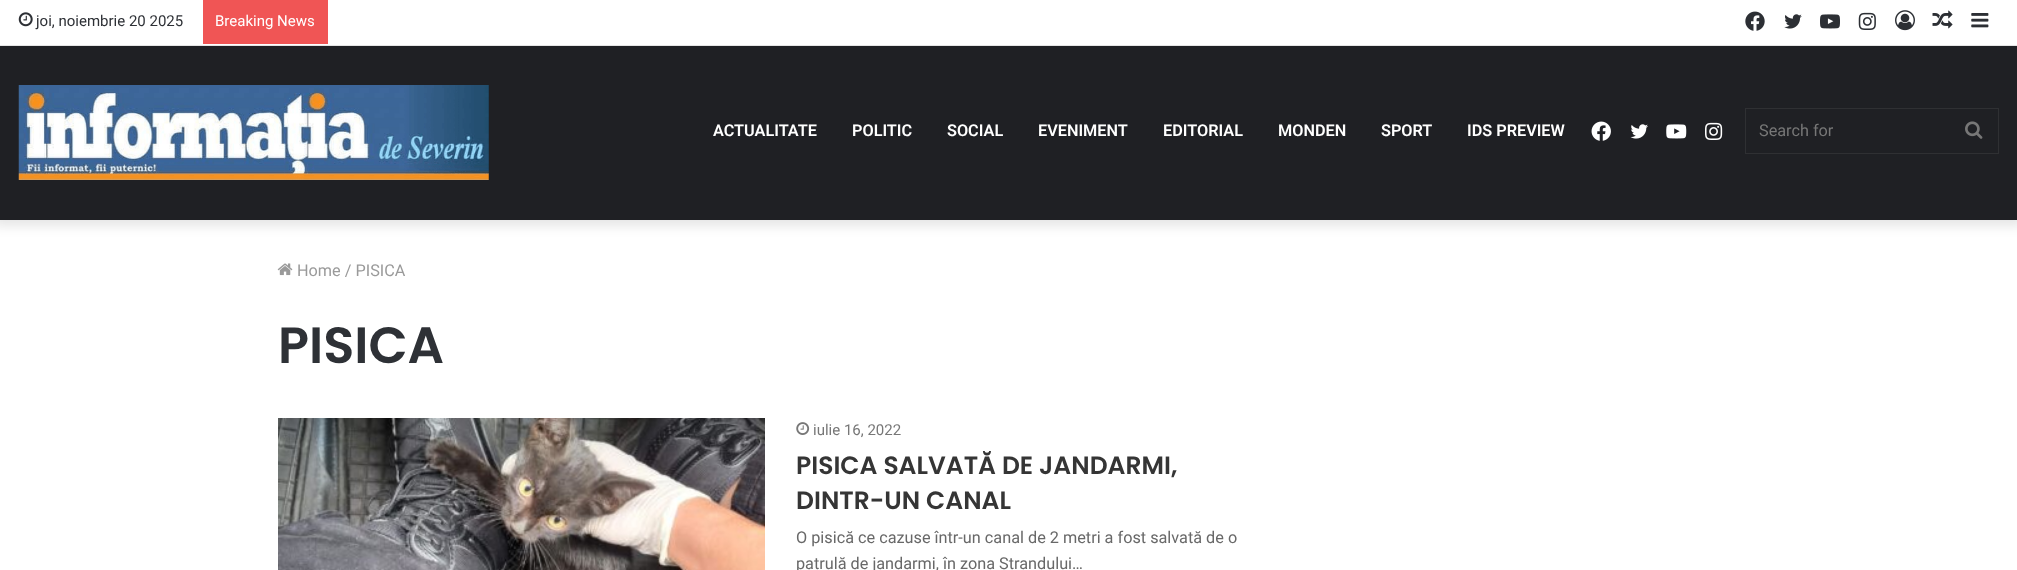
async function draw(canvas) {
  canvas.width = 2017;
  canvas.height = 570;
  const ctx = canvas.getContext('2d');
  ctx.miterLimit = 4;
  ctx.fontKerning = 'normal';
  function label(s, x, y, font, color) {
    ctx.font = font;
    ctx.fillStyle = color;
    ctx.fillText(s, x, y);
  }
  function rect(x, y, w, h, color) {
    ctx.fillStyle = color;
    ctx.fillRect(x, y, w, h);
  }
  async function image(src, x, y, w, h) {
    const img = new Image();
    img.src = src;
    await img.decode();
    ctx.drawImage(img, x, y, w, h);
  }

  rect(0, 0, 2017, 570, '#fff');
  ctx.fillStyle = '#0000001a';
  ctx.filter = 'blur(6px)';
  ctx.beginPath();
  ctx.rect(-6, -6, 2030, 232);
  ctx.fill();
  ctx.filter = 'none';
  rect(0, 0, 2017, 45, '#fff');
  rect(0, 45, 1, 1, '#e6e6e6');
  await image('assets/img1.png', 18, 12, 15, 15);
  label('joi, noiembrie 20 2025', 36, 26, '15px Roboto', '#2e3136');
  rect(203, 0, 125, 44, '#f05555');
  label('Breaking News', 215, 26, '15px Roboto', '#fff');
  await image('assets/img2.png', 1745, 11, 20, 20);
  await image('assets/img3.png', 1784, 14, 18, 15);
  await image('assets/img4.png', 1820, 14, 20, 15);
  await image('assets/img5.png', 1858, 12, 18, 18);
  await image('assets/img6.png', 1895, 10, 20, 21);
  await image('assets/img7.png', 1932, 10, 21, 19);
  await image('assets/img8.png', 1971, 13, 18, 15);
  rect(0, 46, 2017, 174, '#1f2024');
  await image('assets/img9.png', 18, 85, 471, 95);
  label('ACTUALITATE', 713, 136, '600 16.25px Roboto', '#fff');
  label('POLITIC', 852, 136, '600 16.25px Roboto', '#fff');
  label('SOCIAL', 947, 136, '600 16.25px Roboto', '#fff');
  label('EVENIMENT', 1038, 136, '600 16.25px Roboto', '#fff');
  label('EDITORIAL', 1163, 136, '600 16.25px Roboto', '#fff');
  label('MONDEN', 1278, 136, '600 16.25px Roboto', '#fff');
  label('SPORT', 1381, 136, '600 16.25px Roboto', '#fff');
  label('IDS PREVIEW', 1467, 136, '600 16.25px Roboto', '#fff');
  await image('assets/img10.png', 1591, 121, 20, 20);
  await image('assets/img11.png', 1630, 124, 18, 15);
  await image('assets/img12.png', 1666, 124, 21, 15);
  await image('assets/img13.png', 1705, 122, 18, 18);
  ctx.strokeStyle = '#2f3033';
  ctx.strokeRect(1745.5, 108.5, 253, 45);
  label('Search for', 1759, 136, '16.25px Roboto', '#777');
  await image('assets/img14.png', 1965, 121, 18, 18);
  await image('assets/img15.png', 277, 263, 16, 13);
  label('Home / PISICA', 297, 276, '16.25px Roboto', '#9a9a9a');
  label('PISICA', 278, 363, '600 51px Poppins', '#2e3136');
  await image('assets/img16.png', 278, 418, 487, 152);
  await image('assets/img17.png', 796, 422, 14, 13);
  label('iulie 16, 2022', 813, 435, '15px Roboto', '#777');
  label('PISICA SALVATĂ DE JANDARMI,', 796, 474, '600 25px Poppins', '#353535');
  label('DINTR-UN CANAL', 796, 509, '600 25px Poppins', '#353535');
  label('O pisică ce cazuse într-un canal de 2 metri a fost salvată de o', 796, 543, '16.25px Roboto', '#686868');
  label('patrulă de jandarmi, în zona Ștrandului…', 796, 569, '16.25px Roboto', '#686868');
}

draw(document.querySelector('canvas'));
